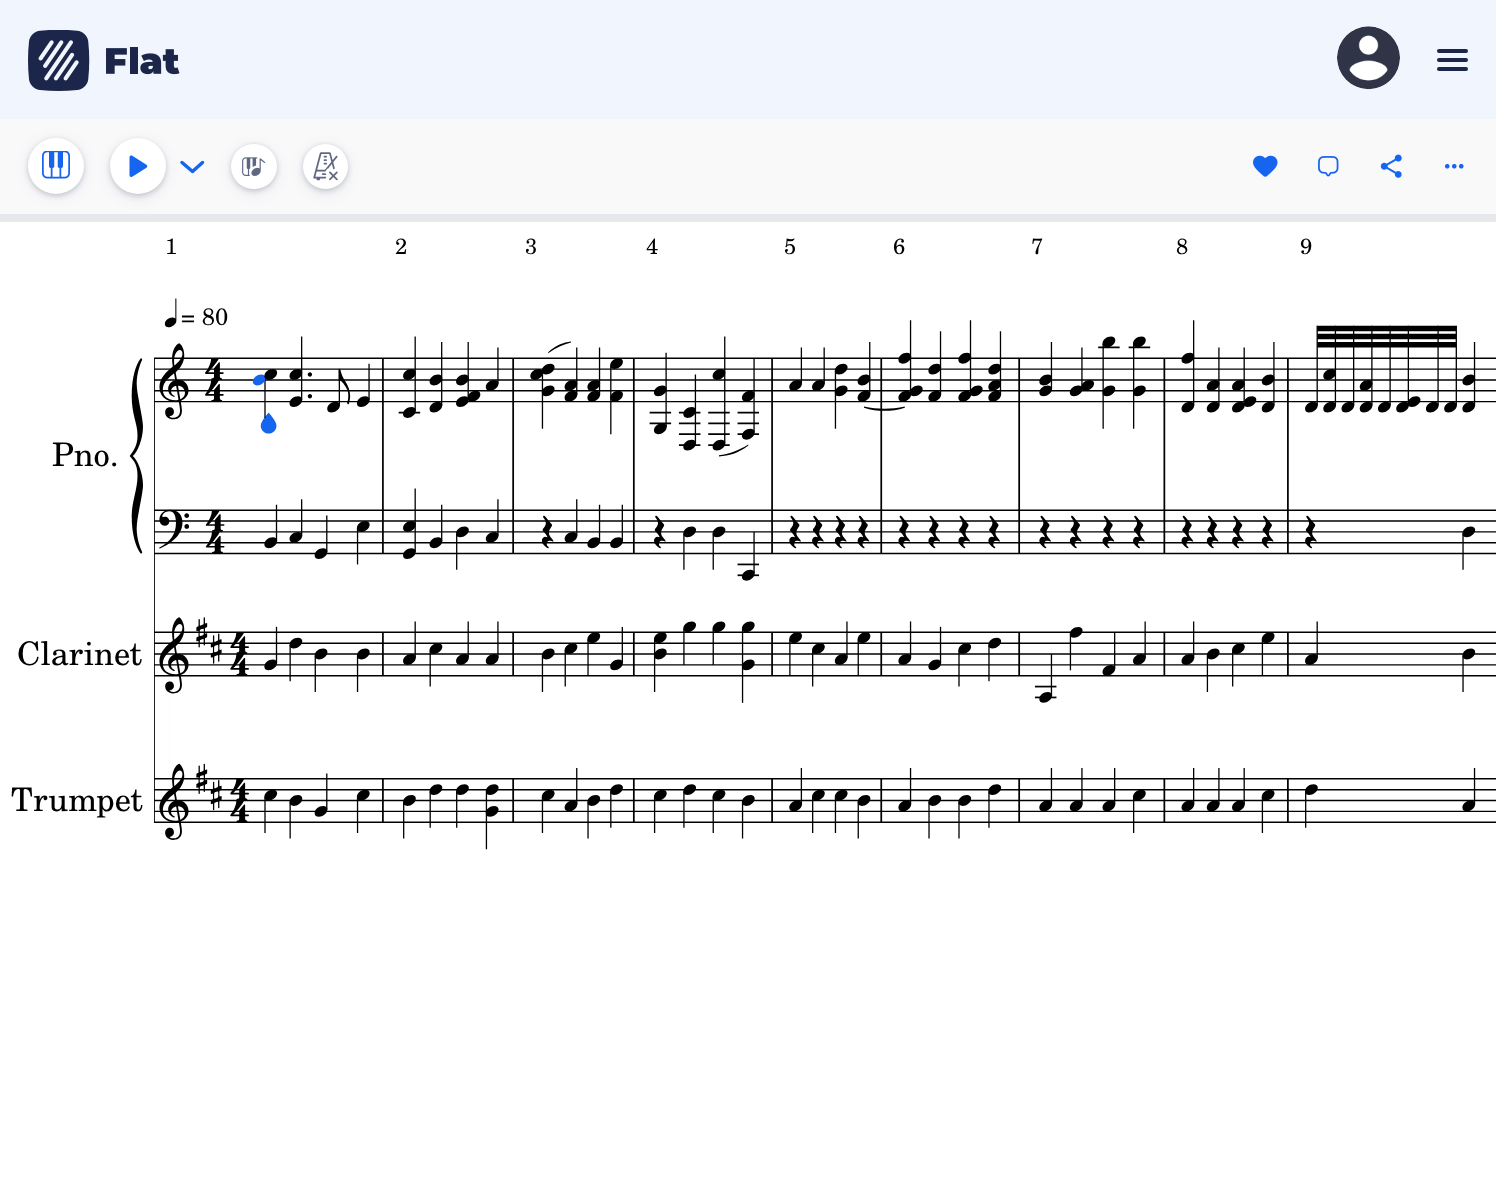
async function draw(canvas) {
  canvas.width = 1496;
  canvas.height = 1190;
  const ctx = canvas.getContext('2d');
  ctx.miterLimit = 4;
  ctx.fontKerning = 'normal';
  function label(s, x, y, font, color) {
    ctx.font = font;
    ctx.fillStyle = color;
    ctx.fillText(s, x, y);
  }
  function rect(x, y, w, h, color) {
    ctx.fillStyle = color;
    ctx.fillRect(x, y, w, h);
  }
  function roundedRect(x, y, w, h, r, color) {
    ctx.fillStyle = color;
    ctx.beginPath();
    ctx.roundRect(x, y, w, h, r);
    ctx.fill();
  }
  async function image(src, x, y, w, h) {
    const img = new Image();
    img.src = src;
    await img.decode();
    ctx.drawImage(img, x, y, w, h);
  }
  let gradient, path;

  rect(0, 0, 1496, 1190, '#fff');
  rect(0, 0, 1496, 119, '#f1f6fe');
  await image('assets/img1.png', 28, 30, 152, 61);
  ctx.fillStyle = '#fff';
  ctx.beginPath();
  ctx.arc(1368.5, 57.5, 31.5, 0, 2 * Math.PI);
  ctx.fill();
  await image('assets/img2.png', 1337, 26, 63, 64);
  roundedRect(1437, 49, 31, 4, 2, '#1c264a');
  roundedRect(1437, 58, 31, 4, 2, '#1c264a');
  roundedRect(1437, 67, 31, 4, 2, '#1c264a');
  rect(0, 119, 1496, 95, '#f9f9fa');
  ctx.fillStyle = '#28304f1a';
  ctx.filter = 'blur(7px)';
  ctx.beginPath();
  ctx.roundRect(110, 142, 56, 56, 28);
  ctx.fill();
  ctx.filter = 'none';
  ctx.filter = 'blur(7px)';
  ctx.beginPath();
  ctx.roundRect(231, 147, 46, 46, 23);
  ctx.fill();
  ctx.filter = 'none';
  ctx.filter = 'blur(7px)';
  ctx.beginPath();
  ctx.roundRect(303, 147, 45, 46, 22.5);
  ctx.fill();
  ctx.filter = 'none';
  rect(0, 214, 1496, 8, '#e7e8ec');
  ctx.fillStyle = '#28304f1a';
  ctx.filter = 'blur(7px)';
  ctx.beginPath();
  ctx.roundRect(28, 140, 56, 56, 28);
  ctx.fill();
  ctx.filter = 'none';
  ctx.fillStyle = '#28304f33';
  ctx.filter = 'blur(2.5px)';
  ctx.beginPath();
  ctx.roundRect(28, 140, 56, 56, 28);
  ctx.fill();
  ctx.filter = 'none';
  ctx.fillStyle = '#fff';
  ctx.beginPath();
  ctx.arc(56, 166, 28, 0, 2 * Math.PI);
  ctx.fill();
  await image('assets/img3.png', 42, 151, 28, 28);
  ctx.fillStyle = '#28304f33';
  ctx.filter = 'blur(2.5px)';
  ctx.beginPath();
  ctx.roundRect(110, 140, 56, 56, 28);
  ctx.fill();
  ctx.filter = 'none';
  ctx.fillStyle = '#fff';
  ctx.beginPath();
  ctx.arc(138, 166, 28, 0, 2 * Math.PI);
  ctx.fill();
  await image('assets/img4.png', 129, 155, 19, 22);
  path = new Path2D('M182 162.5L192.5 171.5L202.5 162.5');
  ctx.strokeStyle = '#1565ef';
  ctx.lineWidth = 3.5;
  ctx.lineCap = 'round';
  ctx.lineJoin = 'round';
  ctx.stroke(path);
  ctx.fillStyle = '#28304f33';
  ctx.filter = 'blur(2.5px)';
  ctx.beginPath();
  ctx.roundRect(231, 145, 46, 46, 23);
  ctx.fill();
  ctx.filter = 'none';
  roundedRect(231, 144, 46, 45, 22.5, '#fff');
  await image('assets/img5.png', 242, 157, 24, 19);
  ctx.fillStyle = '#28304f33';
  ctx.filter = 'blur(2.5px)';
  ctx.beginPath();
  ctx.roundRect(303, 145, 45, 46, 22.5);
  ctx.fill();
  ctx.filter = 'none';
  ctx.fillStyle = '#fff';
  ctx.beginPath();
  ctx.arc(325.5, 166.5, 22.5, 0, 2 * Math.PI);
  ctx.fill();
  await image('assets/img6.png', 313, 152, 25, 29);
  await image('assets/img7.png', 1253, 155, 25, 22);
  await image('assets/img8.png', 1318, 156, 21, 21);
  await image('assets/img9.png', 1380, 154, 22, 24);
  await image('assets/img10.png', 1444, 163, 20, 6);
  label('1', 165, 254, '22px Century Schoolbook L', '#000');
  label('2', 395, 254, '22px Century Schoolbook L', '#000');
  label('3', 525, 254, '22px Century Schoolbook L', '#000');
  label('4', 646, 254, '22px Century Schoolbook L', '#000');
  label('5', 784, 254, '22px Century Schoolbook L', '#000');
  label('6', 893, 254, '22px Century Schoolbook L', '#000');
  label('7', 1031, 254, '22px Century Schoolbook L', '#000');
  label('8', 1176, 254, '22px Century Schoolbook L', '#000');
  label('9', 1300, 254, '22px Century Schoolbook L', '#000');
  gradient = ctx.createRadialGradient(154, 28.55, 0, 154, 28.55, 18);
  gradient.addColorStop(0, '#919191');
  gradient.addColorStop(1, '#fff');
  ctx.fillStyle = gradient;
  ctx.beginPath();
  ctx.rect(168, 468, 4, 504);
  ctx.save();
  ctx.clip();
  ctx.scale(1, 454 / 18);
  ctx.fillRect(0, 0, 1496, 48);
  ctx.restore();
  gradient = ctx.createLinearGradient(154, 720, 1496, 720);
  gradient.addColorStop(0, '#fff');
  gradient.addColorStop(0.01, '#fff');
  gradient.addColorStop(0.03, '#ffffff80');
  ctx.fillStyle = gradient;
  ctx.fillRect(168, 468, 4, 504);
  await image('assets/img11.png', 154, 298, 1342, 552);
  await image('assets/img12.png', 129, 358, 14, 196);
  label('Pno.', 52, 466, '32.5px Century Schoolbook L', '#000');
  label('Clarinet', 17, 665, '32.5px Century Schoolbook L', '#000');
  label('Trumpet', 11, 811, '32.5px Century Schoolbook L', '#000');
}

draw(document.querySelector('canvas'));
